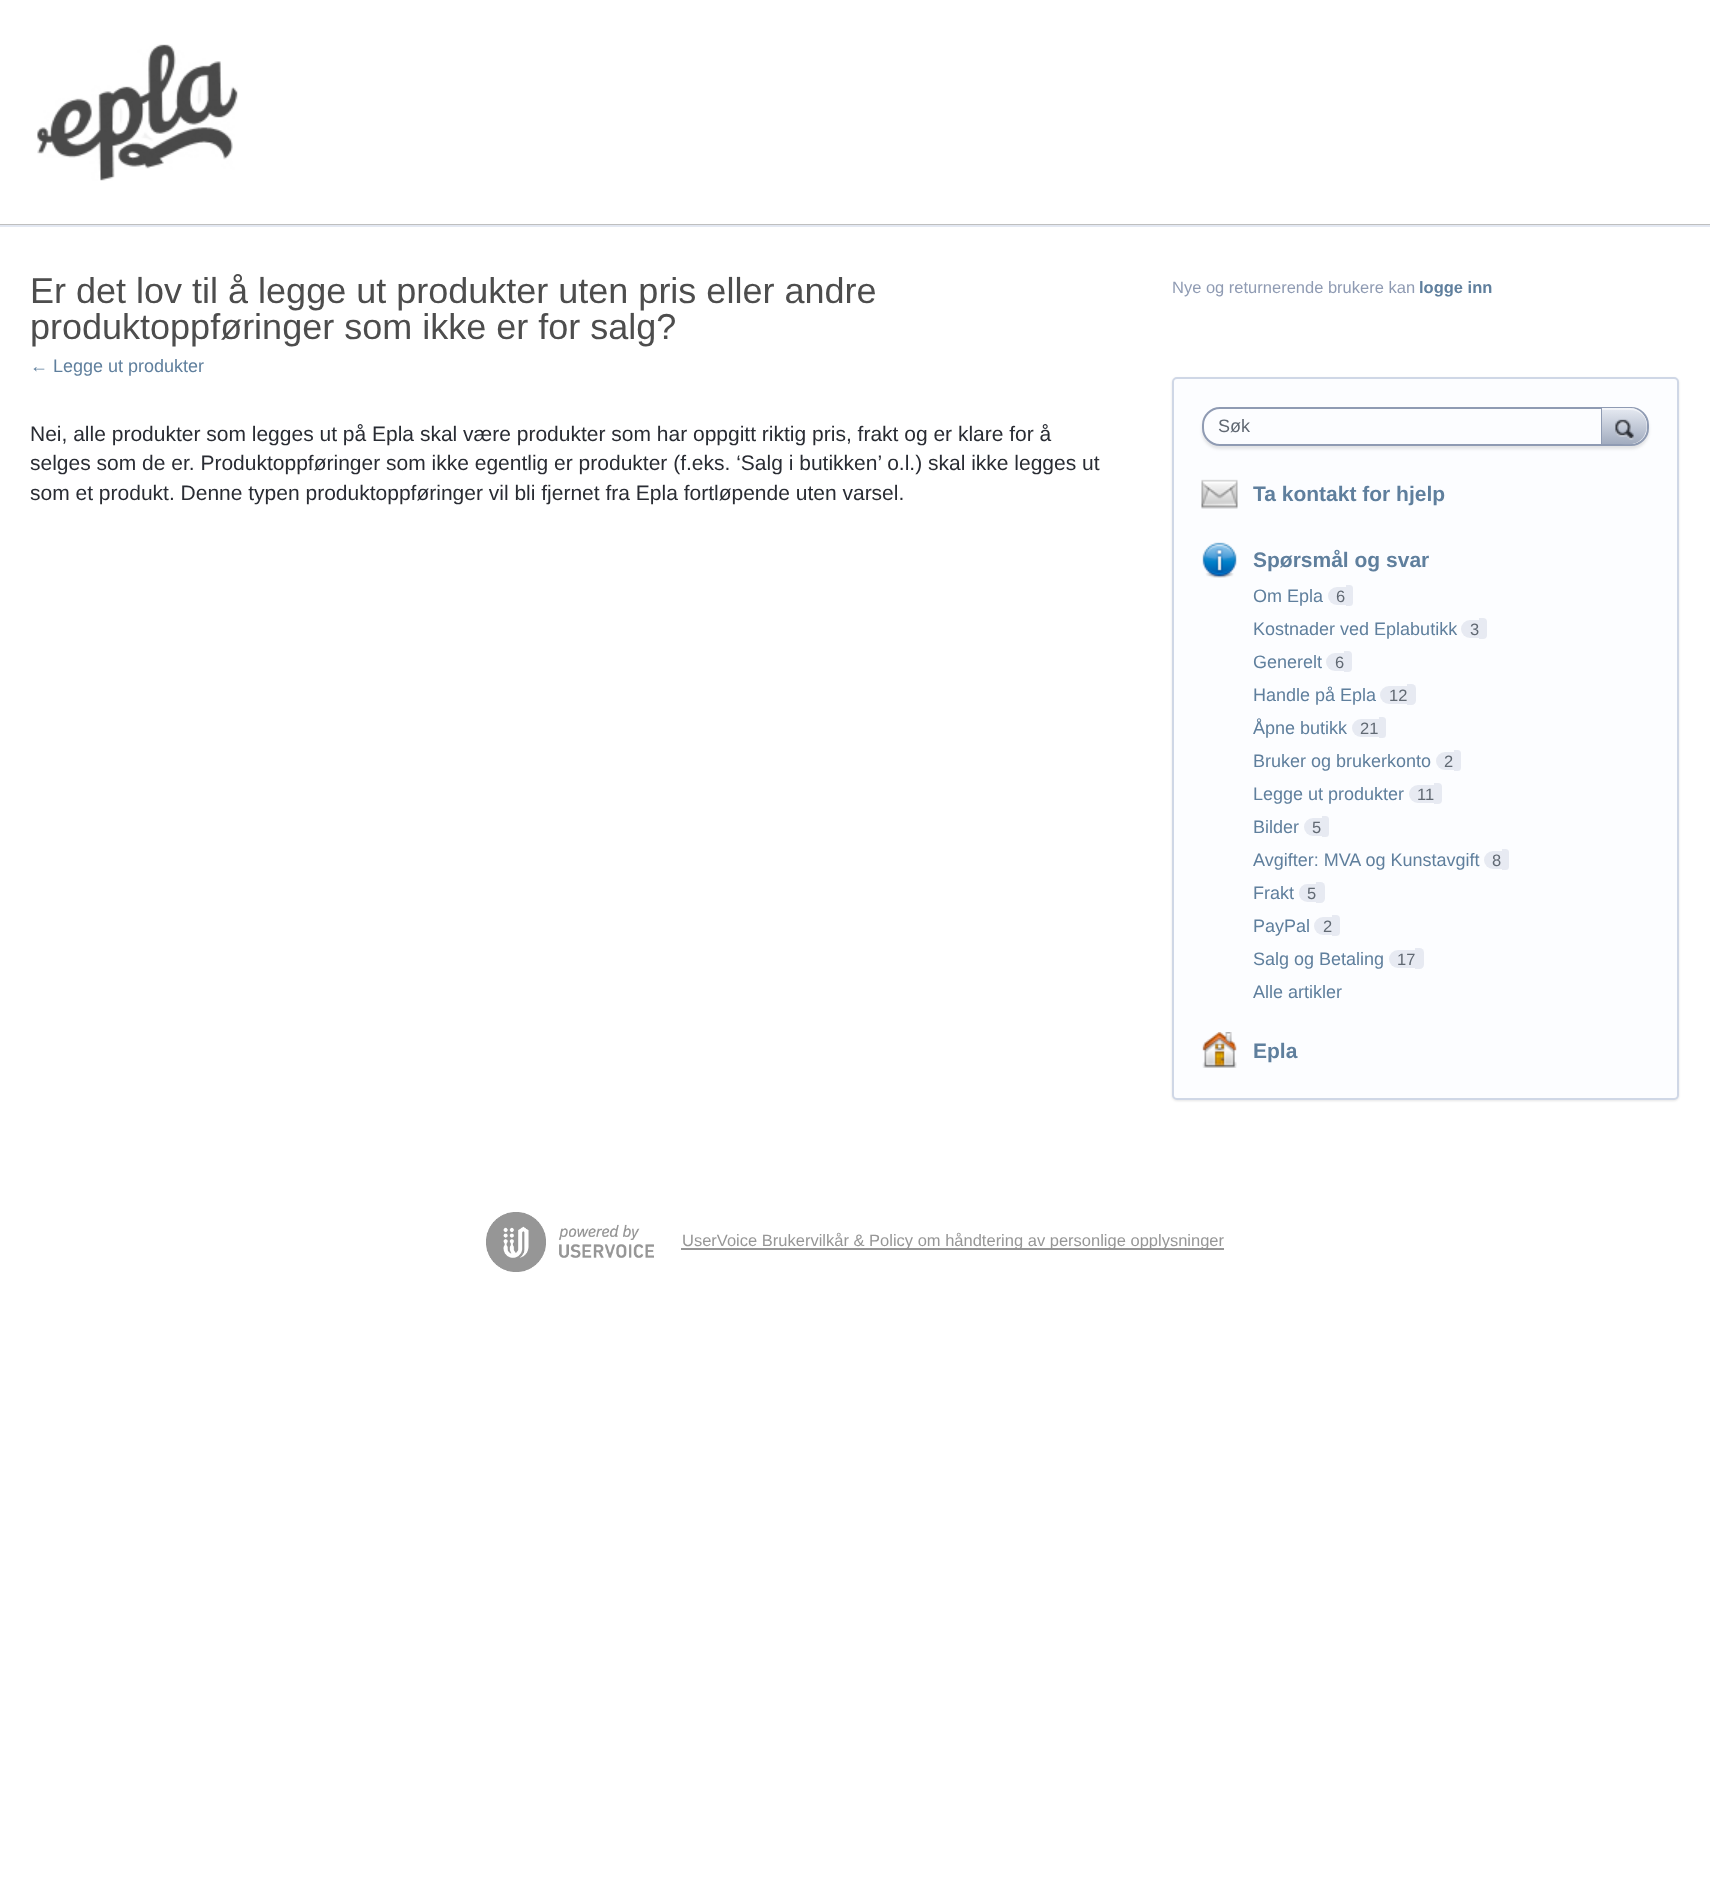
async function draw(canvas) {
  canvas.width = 1710;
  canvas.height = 1901;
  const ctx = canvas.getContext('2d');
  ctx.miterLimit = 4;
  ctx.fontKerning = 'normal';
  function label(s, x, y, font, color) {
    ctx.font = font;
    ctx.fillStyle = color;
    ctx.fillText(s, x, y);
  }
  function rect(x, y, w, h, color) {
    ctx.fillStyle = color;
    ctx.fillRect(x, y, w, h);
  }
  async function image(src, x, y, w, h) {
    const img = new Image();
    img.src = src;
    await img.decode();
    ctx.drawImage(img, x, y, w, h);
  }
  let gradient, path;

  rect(0, 0, 1710, 1901, '#fff');
  rect(0, 224, 1710, 1, '#bfbfbf');
  await image('assets/img1.png', 37, 44, 201, 137);
  rect(0, 225, 1710, 2, '#e3e8f2');
  label('Er det lov til å legge ut produkter uten pris eller andre', 30, 303, '36px Liberation Sans', '#4d4d4d');
  label('produktoppføringer som ikke er for salg?', 30, 339, '36px Liberation Sans', '#4d4d4d');
  label('← Legge ut produkter', 30, 372, '18px Liberation Sans', '#5f7f9d');
  label('Nei, alle produkter som legges ut på Epla skal være produkter som har oppgitt riktig pris, frakt og er klare for å', 30, 441, '21px Liberation Sans', '#292c33');
  label('selges som de er. Produktoppføringer som ikke egentlig er produkter (f.eks. ‘Salg i butikken’ o.l.) skal ikke legges ut', 30, 470, '21px Liberation Sans', '#292c33');
  label('som et produkt. Denne typen produktoppføringer vil bli fjernet fra Epla fortløpende uten varsel.', 30, 500, '21px Liberation Sans', '#292c33');
  label('Nye og returnerende brukere kan', 1172, 293, '16.5px Liberation Sans', '#8f9bb3');
  label('logge inn', 1419, 293, 'bold 16.5px Liberation Sans', '#5f7f9d');
  ctx.fillStyle = '#0000001a';
  ctx.filter = 'blur(1px)';
  ctx.beginPath();
  ctx.roundRect(1172, 378, 507, 723, 5);
  ctx.fill();
  ctx.filter = 'none';
  ctx.fillStyle = '#fcfdff';
  ctx.beginPath();
  ctx.roundRect(1173, 378, 505, 721, 4);
  ctx.fill();
  ctx.strokeStyle = '#cfd7e6';
  ctx.lineWidth = 2;
  ctx.stroke();
  ctx.fillStyle = '#0000001a';
  ctx.filter = 'blur(1.5px)';
  ctx.beginPath();
  ctx.roundRect(1202, 410, 447, 39, 18);
  ctx.fill();
  ctx.filter = 'none';
  ctx.fillStyle = '#fcfdff';
  ctx.beginPath();
  ctx.roundRect(1203, 408, 445, 37, 17);
  ctx.fill();
  ctx.strokeStyle = '#8f9bb3';
  ctx.stroke();
  label('Søk', 1218, 432, '18px Liberation Sans', '#616973');
  gradient = ctx.createLinearGradient(1602, 408, 1602, 444);
  gradient.addColorStop(0, '#e6eaf2');
  gradient.addColorStop(1, '#a2acbf');
  ctx.fillStyle = gradient;
  path = new Path2D('M1602 408V444H1621C1626 444 1631 445 1636 443C1653 436 1649 408 1630 408Z');
  ctx.fill(path);
  ctx.fillStyle = '#ffffff80';
  path = new Path2D('M1602 408V410H1630C1640 410 1647 417 1647 426C1647 416 1640 408 1630 408Z');
  ctx.fill(path);
  ctx.fillStyle = '#8f9bb3';
  path = new Path2D('M1641 440C1645.5 436 1647 431.5 1647 426C1647 431.5 1645 436.5 1641 440Z');
  ctx.fill(path);
  rect(1601, 408, 1, 36, '#8f9bb3');
  await image('assets/img2.png', 1615, 419, 19, 21);
  await image('assets/img3.png', 1201, 479, 37, 30);
  label('Ta kontakt for hjelp', 1253, 501, 'bold 21px Liberation Sans', '#5f7f9d');
  await image('assets/img4.png', 1202, 542, 35, 36);
  label('Spørsmål og svar', 1253, 567, 'bold 21px Liberation Sans', '#5f7f9d');
  label('Om Epla', 1253, 602, '18px Liberation Sans', '#5f7f9d');
  ctx.fillStyle = '#e7eaf2';
  ctx.beginPath();
  ctx.roundRect(1328, 587, 18, 18, [9, 0, 0, 9]);
  ctx.fill();
  label('6', 1336, 602, '16.5px Liberation Sans', '#616973');
  ctx.fillStyle = '#e7eaf2';
  ctx.beginPath();
  ctx.roundRect(1346, 585, 7, 21, [0, 3.5, 3.5, 0]);
  ctx.fill();
  label('Kostnader ved Eplabutikk', 1253, 635, '18px Liberation Sans', '#5f7f9d');
  ctx.fillStyle = '#e7eaf2';
  ctx.beginPath();
  ctx.roundRect(1461, 620, 18, 18, [9, 0, 0, 9]);
  ctx.fill();
  label('3', 1470, 635, '16.5px Liberation Sans', '#616973');
  ctx.fillStyle = '#e7eaf2';
  ctx.beginPath();
  ctx.roundRect(1479, 618, 8, 21, [0, 4, 4, 0]);
  ctx.fill();
  label('Generelt', 1253, 668, '18px Liberation Sans', '#5f7f9d');
  ctx.fillStyle = '#e7eaf2';
  ctx.beginPath();
  ctx.roundRect(1326, 653, 18, 18, [9, 0, 0, 9]);
  ctx.fill();
  label('6', 1335, 668, '16.5px Liberation Sans', '#616973');
  ctx.fillStyle = '#e7eaf2';
  ctx.beginPath();
  ctx.roundRect(1344, 651, 8, 21, [0, 4, 4, 0]);
  ctx.fill();
  label('Handle på Epla', 1253, 701, '18px Liberation Sans', '#5f7f9d');
  ctx.fillStyle = '#e7eaf2';
  ctx.beginPath();
  ctx.roundRect(1380, 686, 27, 18, [9, 0, 0, 9]);
  ctx.fill();
  label('12', 1389, 701, '16.5px Liberation Sans', '#616973');
  ctx.fillStyle = '#e7eaf2';
  ctx.beginPath();
  ctx.roundRect(1407, 684, 9, 21, [0, 4.5, 4.5, 0]);
  ctx.fill();
  label('Åpne butikk', 1253, 734, '18px Liberation Sans', '#5f7f9d');
  ctx.fillStyle = '#e7eaf2';
  ctx.beginPath();
  ctx.roundRect(1352, 719, 27, 18, [9, 0, 0, 9]);
  ctx.fill();
  label('21', 1360, 734, '16.5px Liberation Sans', '#616973');
  ctx.fillStyle = '#e7eaf2';
  ctx.beginPath();
  ctx.roundRect(1379, 717, 7, 21, [0, 3.5, 3.5, 0]);
  ctx.fill();
  label('Bruker og brukerkonto', 1253, 767, '18px Liberation Sans', '#5f7f9d');
  ctx.fillStyle = '#e7eaf2';
  ctx.beginPath();
  ctx.roundRect(1436, 752, 18, 18, [9, 0, 0, 9]);
  ctx.fill();
  label('2', 1444, 767, '16.5px Liberation Sans', '#616973');
  ctx.fillStyle = '#e7eaf2';
  ctx.beginPath();
  ctx.roundRect(1454, 750, 7, 21, [0, 3.5, 3.5, 0]);
  ctx.fill();
  label('Legge ut produkter', 1253, 800, '18px Liberation Sans', '#5f7f9d');
  ctx.fillStyle = '#e7eaf2';
  ctx.beginPath();
  ctx.roundRect(1409, 785, 25, 18, [9, 0, 0, 9]);
  ctx.fill();
  label('11', 1417, 800, '16.5px Liberation Sans', '#616973');
  ctx.fillStyle = '#e7eaf2';
  ctx.beginPath();
  ctx.roundRect(1434, 783, 8, 21, [0, 4, 4, 0]);
  ctx.fill();
  label('Bilder', 1253, 833, '18px Liberation Sans', '#5f7f9d');
  ctx.fillStyle = '#e7eaf2';
  ctx.beginPath();
  ctx.roundRect(1304, 818, 18, 18, [9, 0, 0, 9]);
  ctx.fill();
  label('5', 1312, 833, '16.5px Liberation Sans', '#616973');
  ctx.fillStyle = '#e7eaf2';
  ctx.beginPath();
  ctx.roundRect(1322, 816, 7, 21, [0, 3.5, 3.5, 0]);
  ctx.fill();
  label('Avgifter: MVA og Kunstavgift', 1253, 866, '18px Liberation Sans', '#5f7f9d');
  ctx.fillStyle = '#e7eaf2';
  ctx.beginPath();
  ctx.roundRect(1484, 851, 18, 18, [9, 0, 0, 9]);
  ctx.fill();
  label('8', 1492, 866, '16.5px Liberation Sans', '#616973');
  ctx.fillStyle = '#e7eaf2';
  ctx.beginPath();
  ctx.roundRect(1502, 849, 7, 21, [0, 3.5, 3.5, 0]);
  ctx.fill();
  label('Frakt', 1253, 899, '18px Liberation Sans', '#5f7f9d');
  ctx.fillStyle = '#e7eaf2';
  ctx.beginPath();
  ctx.roundRect(1299, 884, 17, 18, [8.5, 0, 0, 8.5]);
  ctx.fill();
  label('5', 1307, 899, '16.5px Liberation Sans', '#616973');
  ctx.fillStyle = '#e7eaf2';
  ctx.beginPath();
  ctx.roundRect(1316, 882, 9, 21, [0, 4.5, 4.5, 0]);
  ctx.fill();
  label('PayPal', 1253, 932, '18px Liberation Sans', '#5f7f9d');
  ctx.fillStyle = '#e7eaf2';
  ctx.beginPath();
  ctx.roundRect(1314, 917, 18, 18, [9, 0, 0, 9]);
  ctx.fill();
  label('2', 1323, 932, '16.5px Liberation Sans', '#616973');
  ctx.fillStyle = '#e7eaf2';
  ctx.beginPath();
  ctx.roundRect(1332, 915, 8, 21, [0, 4, 4, 0]);
  ctx.fill();
  label('Salg og Betaling', 1253, 965, '18px Liberation Sans', '#5f7f9d');
  ctx.fillStyle = '#e7eaf2';
  ctx.beginPath();
  ctx.roundRect(1389, 950, 26, 18, [9, 0, 0, 9]);
  ctx.fill();
  label('17', 1397, 965, '16.5px Liberation Sans', '#616973');
  ctx.fillStyle = '#e7eaf2';
  ctx.beginPath();
  ctx.roundRect(1415, 948, 9, 21, [0, 4.5, 4.5, 0]);
  ctx.fill();
  label('Alle artikler', 1253, 998, '18px Liberation Sans', '#5f7f9d');
  await image('assets/img5.png', 1202, 1032, 35, 36);
  label('Epla', 1253, 1058, 'bold 21px Liberation Sans', '#5f7f9d');
  await image('assets/img6.png', 486, 1212, 168, 60);
  rect(681, 1248, 543, 2, '#969696');
  label('UserVoice Brukervilkår & Policy om håndtering av personlige opplysninger', 682, 1246, '16.5px Liberation Sans', '#969696');
}

draw(document.querySelector('canvas'));
